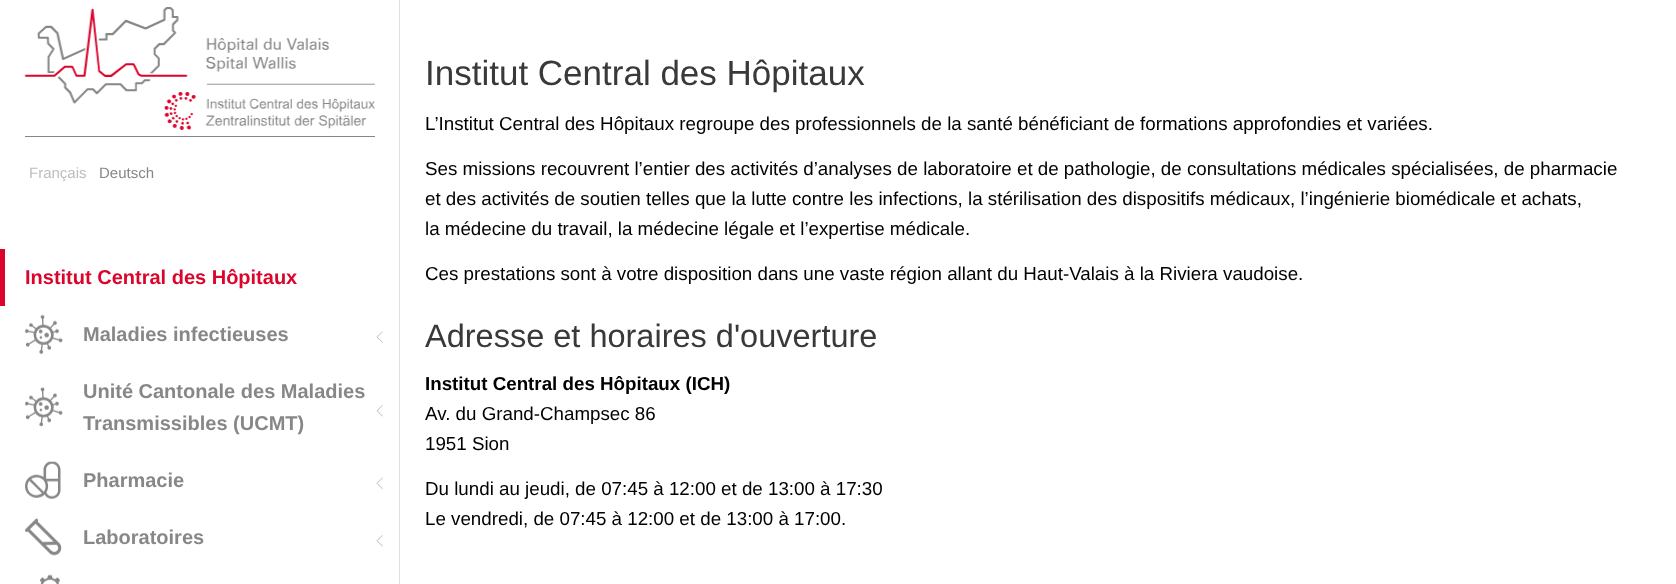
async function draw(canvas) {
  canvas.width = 1676;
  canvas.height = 584;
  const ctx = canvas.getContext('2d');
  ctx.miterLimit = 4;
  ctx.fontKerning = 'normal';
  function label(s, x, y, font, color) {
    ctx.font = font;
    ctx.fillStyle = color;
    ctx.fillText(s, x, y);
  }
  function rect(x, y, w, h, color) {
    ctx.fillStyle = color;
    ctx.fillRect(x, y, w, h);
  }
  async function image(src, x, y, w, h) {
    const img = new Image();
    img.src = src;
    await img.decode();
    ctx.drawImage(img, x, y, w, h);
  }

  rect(0, 0, 1676, 584, '#fff');
  rect(399, 0, 1, 584, '#dfdfdf');
  await image('assets/img1.png', 24, 7, 351, 123);
  rect(25, 136, 350, 1, '#878787');
  label('Français', 29, 178, '15px Liberation Sans', '#bebdbd');
  label('Deutsch', 99, 178, '15px Liberation Sans', '#878787');
  rect(0, 249, 5, 57, '#db052c');
  label('Institut Central des Hôpitaux', 25, 284, 'bold 20px Liberation Sans', '#db052c');
  await image('assets/img2.png', 25, 314, 38, 40);
  label('Maladies infectieuses', 83, 341, 'bold 20px Liberation Sans', '#878787');
  await image('assets/img3.png', 376, 331, 7, 12);
  await image('assets/img4.png', 25, 387, 38, 40);
  label('Unité Cantonale des Maladies', 83, 398, 'bold 20px Liberation Sans', '#878787');
  label('Transmissibles (UCMT)', 83, 430, 'bold 20px Liberation Sans', '#878787');
  await image('assets/img5.png', 376, 405, 7, 12);
  await image('assets/img6.png', 25, 461, 36, 38);
  label('Pharmacie', 83, 487, 'bold 20px Liberation Sans', '#878787');
  await image('assets/img7.png', 376, 477, 7, 12);
  await image('assets/img8.png', 25, 518, 37, 38);
  label('Laboratoires', 83, 544, 'bold 20px Liberation Sans', '#878787');
  await image('assets/img5.png', 376, 535, 7, 12);
  await image('assets/img9.png', 40, 574, 20, 10);
  label('Institut Central des Hôpitaux', 425, 85, '35px Liberation Sans', '#393939');
  label('L’Institut Central des Hôpitaux regroupe des professionnels de la santé bénéficiant de formations approfondies et variées.', 425, 130, '18.75px Liberation Sans', '#000');
  label('Ses missions recouvrent l’entier des activités d’analyses de laboratoire et de pathologie, de consultations médicales spécialisées, de pharmacie', 425, 175, '18.75px Liberation Sans', '#000');
  label('et des activités de soutien telles que la lutte contre les infections, la stérilisation des dispositifs médicaux, l’ingénierie biomédicale et achats,', 425, 205, '18.75px Liberation Sans', '#000');
  label('la médecine du travail, la médecine légale et l’expertise médicale.', 425, 235, '18.75px Liberation Sans', '#000');
  label('Ces prestations sont à votre disposition dans une vaste région allant du Haut-Valais à la Riviera vaudoise.', 425, 280, '18.75px Liberation Sans', '#000');
  label('Adresse et horaires d\'ouverture', 425, 347, '32.5px Liberation Sans', '#393939');
  label('Institut Central des Hôpitaux (ICH)', 425, 390, 'bold 18.75px Liberation Sans', '#000');
  label('Av. du Grand-Champsec 86', 425, 420, '18.75px Liberation Sans', '#000');
  label('1951 Sion', 425, 450, '18.75px Liberation Sans', '#000');
  label('Du lundi au jeudi, de 07:45 à 12:00 et de 13:00 à 17:30', 425, 495, '18.75px Liberation Sans', '#000');
  label('Le vendredi, de 07:45 à 12:00 et de 13:00 à 17:00.', 425, 525, '18.75px Liberation Sans', '#000');
}

draw(document.querySelector('canvas'));
